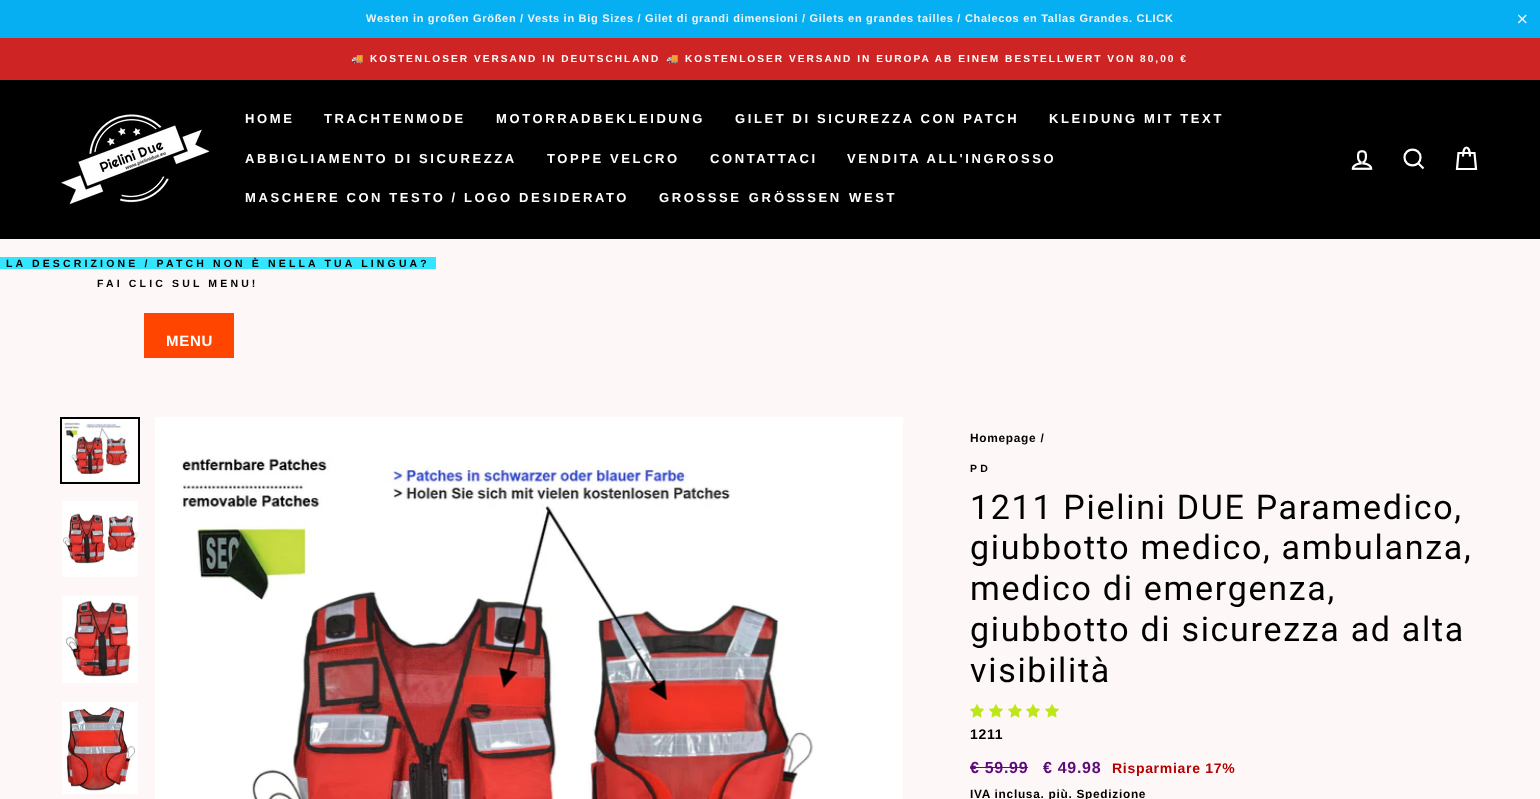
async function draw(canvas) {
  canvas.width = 1540;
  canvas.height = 799;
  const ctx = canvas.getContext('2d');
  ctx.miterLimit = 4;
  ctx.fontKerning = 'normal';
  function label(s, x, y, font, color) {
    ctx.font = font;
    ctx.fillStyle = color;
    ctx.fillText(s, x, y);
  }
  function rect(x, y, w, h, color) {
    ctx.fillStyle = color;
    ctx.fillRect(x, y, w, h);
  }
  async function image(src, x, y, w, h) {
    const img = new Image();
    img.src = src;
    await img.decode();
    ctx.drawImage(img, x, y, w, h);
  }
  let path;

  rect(0, 0, 1540, 799, '#fdf7f7');
  rect(0, 0, 1540, 38, '#05aff2');
  ctx.letterSpacing = '0.7px';
  label('Westen in großen Größen / Vests in Big Sizes / Gilet di grandi dimensioni / Gilets en grandes tailles / Chalecos en Tallas Grandes. CLICK', 366, 22, 'bold 11px Liberation Sans', '#f2f2f2');
  await image('assets/img1.png', 1518, 14, 9, 10);
  rect(0, 38, 1540, 42, '#cf2424');
  ctx.letterSpacing = '2.02px';
  label('🚚', 351, 62, 'bold 10.1px Noto Color Emoji', '#fff');
  label('KOSTENLOSER VERSAND IN DEUTSCHLAND', 370, 62, 'bold 10.1px Liberation Sans', '#fff');
  label('🚚', 666, 62, 'bold 10.1px Noto Color Emoji', '#fff');
  label('KOSTENLOSER VERSAND IN EUROPA AB EINEM BESTELLWERT VON 80,00 €', 685, 62, 'bold 10.1px Liberation Sans', '#fff');
  rect(0, 80, 1540, 159, '#000');
  await image('assets/img2.png', 61, 114, 149, 91);
  ctx.letterSpacing = '2.6px';
  label('HOME', 245, 123, 'bold 13px Liberation Sans', '#fff');
  label('TRACHTENMODE', 324, 123, 'bold 13px Liberation Sans', '#fff');
  label('MOTORRADBEKLEIDUNG', 496, 123, 'bold 13px Liberation Sans', '#fff');
  label('GILET DI SICUREZZA CON PATCH', 735, 123, 'bold 13px Liberation Sans', '#fff');
  label('KLEIDUNG MIT TEXT', 1049, 123, 'bold 13px Liberation Sans', '#fff');
  label('ABBIGLIAMENTO DI SICUREZZA', 245, 163, 'bold 13px Liberation Sans', '#fff');
  label('TOPPE VELCRO', 547, 163, 'bold 13px Liberation Sans', '#fff');
  label('CONTATTACI', 710, 163, 'bold 13px Liberation Sans', '#fff');
  label('VENDITA ALL\'INGROSSO', 847, 163, 'bold 13px Liberation Sans', '#fff');
  label('MASCHERE CON TESTO / LOGO DESIDERATO', 245, 202, 'bold 13px Liberation Sans', '#fff');
  label('GROSS', 659, 202, 'bold 13px Liberation Sans', '#fff');
  ctx.wordSpacing = '1px';
  label('SE GR', 719, 202, 'bold 13px Liberation Sans', '#fff');
  ctx.wordSpacing = '0px';
  label('ÖS', 774, 202, 'bold 13px Liberation Sans', '#fff');
  ctx.wordSpacing = '1px';
  label('SSEN WEST', 796, 202, 'bold 13px Liberation Sans', '#fff');
  await image('assets/img3.png', 1351, 150, 22, 20);
  path = new Path2D('M1420.5 157.5C1420.5 168 1404.5 168 1404.5 157.5C1404.5 147 1420.5 147 1420.5 157.5ZM1423.5 168.5L1418.5 163.5');
  ctx.strokeStyle = '#fff';
  ctx.lineWidth = 2.2;
  ctx.stroke(path);
  path = new Path2D('M1463 156.5C1463 144.5 1470 144.5 1470 156.5M1458.5 153H1474.5L1476 169H1457Z');
  ctx.stroke(path);
  rect(0, 257, 436, 12, '#33e6ff');
  ctx.letterSpacing = '3.15px';
  ctx.wordSpacing = '0px';
  label('LA DESCRIZIONE / PATCH NON È NELLA TUA LINGUA?', 6, 267, 'bold 10.5px Liberation Sans', '#000');
  label('FAI CLIC SUL MENU!', 97, 287, 'bold 10.5px Liberation Sans', '#000');
  rect(144, 313, 90, 45, '#ff4500');
  ctx.letterSpacing = '0.7px';
  label('MENU', 166, 346, 'bold 15px Liberation Sans', '#fff');
  ctx.strokeStyle = '#000';
  ctx.lineWidth = 2;
  ctx.strokeRect(61, 418, 78, 65);
  rect(62, 419, 76, 63, '#fff');
  await image('assets/img4.png', 64, 422, 66, 53);
  rect(62, 501, 76, 76, '#fff');
  await image('assets/img5.png', 63, 511, 75, 54);
  rect(62, 596, 76, 87, '#fff');
  await image('assets/img6.png', 66, 600, 67, 77);
  rect(62, 702, 76, 92, '#fff');
  await image('assets/img7.png', 66, 707, 70, 86);
  rect(155, 417, 748, 382, '#fff');
  await image('assets/img8.png', 181, 458, 633, 341);
  label('Homepage /', 970, 442, 'bold 11.9px Liberation Sans', '#000');
  ctx.letterSpacing = '3.15px';
  label('PD', 970, 472, 'bold 10.5px Liberation Sans', '#000');
  ctx.letterSpacing = '1.7px';
  label('1211 Pielini DUE Paramedico,', 970, 519, '34px Roboto', '#000');
  label('giubbotto medico, ambulanza,', 970, 559, '34px Roboto', '#000');
  label('medico di emergenza,', 970, 600, '34px Roboto', '#000');
  label('giubbotto di sicurezza ad alta', 970, 641, '34px Roboto', '#000');
  label('visibilità', 970, 682, '34px Roboto', '#000');
  await image('assets/img9.png', 970, 704, 14, 14);
  await image('assets/img9.png', 989, 704, 14, 14);
  await image('assets/img9.png', 1008, 704, 14, 14);
  await image('assets/img9.png', 1026, 704, 14, 14);
  await image('assets/img9.png', 1045, 704, 14, 14);
  ctx.letterSpacing = '0.7px';
  label('1211', 970, 739, 'bold 14px Liberation Sans', '#000');
  label('€ 59.99', 970, 773, 'bold 16px Liberation Sans', '#5c0c78');
  rect(970, 767, 58, 1, '#5c0c78');
  label('€ 49.98', 1043, 773, 'bold 16px Liberation Sans', '#5c0c78');
  label('Risparmiare 17%', 1112, 773, 'bold 14px Liberation Sans', '#b30000');
  label('IVA inclusa. più. Spedizione', 970, 798, 'bold 11.9px Liberation Sans', '#000');
}

draw(document.querySelector('canvas'));
